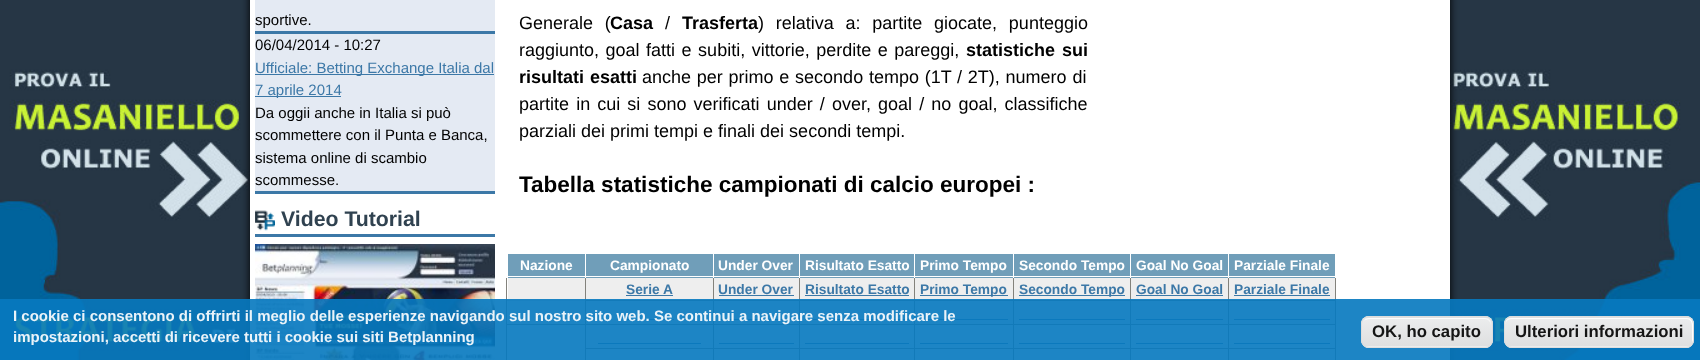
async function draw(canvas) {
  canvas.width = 1700;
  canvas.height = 360;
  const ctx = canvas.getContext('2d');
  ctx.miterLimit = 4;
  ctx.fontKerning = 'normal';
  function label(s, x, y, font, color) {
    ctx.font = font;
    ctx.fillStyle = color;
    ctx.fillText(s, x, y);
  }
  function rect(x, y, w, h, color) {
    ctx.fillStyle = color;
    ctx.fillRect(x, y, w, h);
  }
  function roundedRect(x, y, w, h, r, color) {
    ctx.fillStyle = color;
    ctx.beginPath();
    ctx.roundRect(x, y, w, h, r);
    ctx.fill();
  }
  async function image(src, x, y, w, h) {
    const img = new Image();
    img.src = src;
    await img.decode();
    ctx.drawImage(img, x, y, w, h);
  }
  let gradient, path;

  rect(0, 0, 1700, 360, '#fff');
  await image('assets/img1.png', 0, 0, 1700, 360);
  ctx.fillStyle = '#000';
  ctx.filter = 'blur(4.5px)';
  ctx.beginPath();
  ctx.rect(250, -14, 1200, 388);
  ctx.fill();
  ctx.filter = 'none';
  rect(250, 0, 1200, 360, '#fff');
  rect(255, 0, 240, 191, '#e4eaf3');
  rect(255, 31, 240, 3, '#3c78a7');
  label('sportive.', 255, 25, '15px Liberation Sans', '#000');
  rect(255, 191, 240, 3, '#3c78a7');
  label('06/04/2014 - 10:27', 255, 50, '15px Liberation Sans', '#000');
  rect(255, 74, 239, 1, '#3c78a7');
  label('Ufficiale: Betting Exchange Italia dal', 255, 73, '15px Liberation Sans', '#3c78a7');
  rect(255, 96, 86, 1, '#3c78a7');
  label('7 aprile 2014', 255, 95, '15px Liberation Sans', '#3c78a7');
  label('Da oggii anche in Italia si può', 255, 118, '15px Liberation Sans', '#000');
  label('scommettere con il Punta e Banca,', 255, 140, '15px Liberation Sans', '#000');
  label('sistema online di scambio', 255, 163, '15px Liberation Sans', '#000');
  label('scommesse.', 255, 185, '15px Liberation Sans', '#000');
  await image('assets/img2.png', 255, 210, 20, 21);
  rect(255, 234, 240, 3, '#3c78a7');
  label('Video Tutorial', 281, 226, 'bold 21.25px Liberation Sans', '#304250');
  await image('assets/img3.png', 255, 244, 240, 116);
  ctx.wordSpacing = '6.75px';
  label('Generale (', 519, 29, '18px Liberation Sans', '#000');
  ctx.wordSpacing = '0px';
  label('Casa', 610, 29, 'bold 18px Liberation Sans', '#000');
  label('/', 665, 29, '18px Liberation Sans', '#000');
  label('Trasferta', 682, 29, 'bold 18px Liberation Sans', '#000');
  ctx.wordSpacing = '6.75px';
  label(') relativa a: partite giocate, punteggio', 758, 29, '18px Liberation Sans', '#000');
  ctx.wordSpacing = '1.5px';
  label('raggiunto, goal fatti e subiti, vittorie, perdite e pareggi,', 519, 56, '18px Liberation Sans', '#000');
  ctx.wordSpacing = '2px';
  label('statistiche sui', 966, 56, 'bold 18px Liberation Sans', '#000');
  ctx.wordSpacing = '1px';
  label('risultati esatti', 519, 83, 'bold 18px Liberation Sans', '#000');
  ctx.wordSpacing = '0.75px';
  label('anche per primo e secondo tempo (1T / 2T), numero di', 642, 83, '18px Liberation Sans', '#000');
  ctx.wordSpacing = '2.1px';
  label('partite in cui si sono verificati under / over, goal / no goal, classifiche', 519, 110, '18px Liberation Sans', '#000');
  ctx.wordSpacing = '0px';
  label('parziali dei primi tempi e finali dei secondi tempi.', 519, 137, '18px Liberation Sans', '#000');
  label('Tabella statistiche campionati di calcio europei :', 519, 192, 'bold 22.5px Liberation Sans', '#000');
  rect(508, 254, 827, 24, '#709eb9');
  rect(1228, 324, 108, 1, '#83827c');
  rect(1228, 348, 108, 1, '#83827c');
  rect(1335, 348, 1, 12, '#83827c');
  rect(1335, 324, 1, 25, '#83827c');
  rect(1228, 300, 108, 1, '#83827c');
  rect(1335, 276, 1, 49, '#83827c');
  rect(1335, 276, 1, 2, '#fff');
  rect(1228, 348, 1, 12, '#83827c');
  rect(1130, 348, 99, 1, '#83827c');
  rect(1228, 324, 1, 25, '#83827c');
  rect(1130, 324, 99, 1, '#83827c');
  rect(508, 301, 827, 23, '#eee');
  rect(1228, 300, 1, 25, '#83827c');
  rect(1130, 300, 99, 1, '#83827c');
  rect(508, 278, 827, 22, '#eee');
  rect(1228, 276, 1, 25, '#83827c');
  rect(1228, 276, 108, 1, '#fff');
  rect(1228, 253, 1, 25, '#fff');
  rect(1130, 348, 1, 12, '#83827c');
  rect(1013, 348, 118, 1, '#83827c');
  rect(1130, 324, 1, 25, '#83827c');
  rect(1013, 324, 118, 1, '#83827c');
  rect(1130, 300, 1, 25, '#83827c');
  rect(1013, 300, 118, 1, '#83827c');
  rect(1130, 276, 1, 25, '#83827c');
  rect(1130, 276, 99, 1, '#fff');
  rect(1130, 253, 1, 25, '#fff');
  rect(1013, 348, 1, 12, '#83827c');
  rect(914, 348, 100, 1, '#83827c');
  rect(1013, 324, 1, 25, '#83827c');
  rect(914, 324, 100, 1, '#83827c');
  rect(1013, 300, 1, 25, '#83827c');
  rect(914, 300, 100, 1, '#83827c');
  rect(1013, 276, 1, 25, '#83827c');
  rect(1013, 276, 118, 1, '#fff');
  rect(1013, 253, 1, 25, '#fff');
  rect(914, 348, 1, 12, '#83827c');
  rect(799, 348, 116, 1, '#83827c');
  rect(914, 324, 1, 25, '#83827c');
  rect(799, 324, 116, 1, '#83827c');
  rect(914, 300, 1, 25, '#83827c');
  rect(799, 300, 116, 1, '#83827c');
  rect(914, 276, 1, 25, '#83827c');
  rect(914, 276, 100, 1, '#fff');
  rect(914, 253, 1, 25, '#fff');
  rect(799, 348, 1, 12, '#83827c');
  rect(713, 348, 87, 1, '#83827c');
  rect(799, 324, 1, 25, '#83827c');
  rect(713, 324, 87, 1, '#83827c');
  rect(799, 300, 1, 25, '#83827c');
  rect(713, 300, 87, 1, '#83827c');
  rect(799, 276, 1, 25, '#83827c');
  rect(799, 276, 116, 1, '#fff');
  rect(799, 253, 1, 25, '#fff');
  rect(713, 348, 1, 12, '#83827c');
  rect(585, 348, 129, 1, '#83827c');
  rect(713, 324, 1, 25, '#83827c');
  rect(585, 324, 129, 1, '#83827c');
  rect(713, 300, 1, 25, '#83827c');
  rect(585, 300, 129, 1, '#83827c');
  rect(713, 276, 1, 25, '#83827c');
  rect(713, 276, 87, 1, '#fff');
  rect(713, 253, 1, 25, '#fff');
  rect(585, 348, 1, 12, '#83827c');
  rect(585, 324, 1, 25, '#83827c');
  rect(506, 324, 80, 1, '#83827c');
  rect(585, 276, 1, 49, '#83827c');
  rect(585, 276, 129, 1, '#fff');
  rect(585, 253, 1, 25, '#fff');
  rect(506, 300, 79, 1, '#ccc');
  rect(506, 276, 1, 84, '#83827c');
  rect(506, 276, 80, 1, '#fff');
  rect(506, 277, 1, 1, '#fff');
  label('Nazione', 520, 270, 'bold 13.75px Liberation Sans', '#fff');
  label('Campionato', 610, 270, 'bold 13.75px Liberation Sans', '#fff');
  label('Under Over', 718, 270, 'bold 13.75px Liberation Sans', '#fff');
  label('Risultato Esatto', 805, 270, 'bold 13.75px Liberation Sans', '#fff');
  label('Primo Tempo', 920, 270, 'bold 13.75px Liberation Sans', '#fff');
  label('Secondo Tempo', 1019, 270, 'bold 13.75px Liberation Sans', '#fff');
  label('Goal No Goal', 1136, 270, 'bold 13.75px Liberation Sans', '#fff');
  label('Parziale Finale', 1234, 270, 'bold 13.75px Liberation Sans', '#fff');
  rect(598, 343, 103, 1, '#3c78a7');
  rect(719, 343, 75, 1, '#3c78a7');
  rect(805, 343, 104, 1, '#3c78a7');
  rect(920, 343, 88, 1, '#3c78a7');
  rect(1019, 343, 106, 1, '#3c78a7');
  rect(1136, 343, 87, 1, '#3c78a7');
  rect(1234, 343, 96, 1, '#3c78a7');
  rect(626, 319, 48, 1, '#3c78a7');
  rect(719, 319, 75, 1, '#3c78a7');
  rect(805, 319, 104, 1, '#3c78a7');
  rect(920, 319, 88, 1, '#3c78a7');
  rect(1019, 319, 106, 1, '#3c78a7');
  rect(1136, 319, 87, 1, '#3c78a7');
  rect(1234, 319, 96, 1, '#3c78a7');
  label('Serie A', 626, 294, 'bold 13.75px Liberation Sans', '#3c78a7');
  rect(626, 295, 47, 1, '#3c78a7');
  label('Under Over', 718, 294, 'bold 13.75px Liberation Sans', '#3c78a7');
  rect(719, 295, 75, 1, '#3c78a7');
  label('Risultato Esatto', 805, 294, 'bold 13.75px Liberation Sans', '#3c78a7');
  rect(805, 295, 104, 1, '#3c78a7');
  rect(920, 295, 88, 1, '#3c78a7');
  label('Primo Tempo', 920, 294, 'bold 13.75px Liberation Sans', '#3c78a7');
  rect(1019, 295, 106, 1, '#3c78a7');
  label('Secondo Tempo', 1019, 294, 'bold 13.75px Liberation Sans', '#3c78a7');
  label('Goal No Goal', 1136, 294, 'bold 13.75px Liberation Sans', '#3c78a7');
  rect(1136, 295, 87, 1, '#3c78a7');
  label('Parziale Finale', 1234, 294, 'bold 13.75px Liberation Sans', '#3c78a7');
  rect(1234, 295, 96, 1, '#3c78a7');
  rect(0, 299, 1700, 61, '#0779bfe8');
  label('I cookie ci consentono di offrirti il meglio delle esperienze navigando sul nostro sito web. Se continui a navigare senza modificare le', 13, 321, 'bold 15px Liberation Sans', '#eaf3f9');
  label('impostazioni, accetti di ricevere tutti i cookie sui siti Betplanning', 13, 342, 'bold 15px Liberation Sans', '#eaf3f9');
  roundedRect(1361, 316, 132, 32, 8, '#ededede8');
  ctx.save();
  ctx.beginPath();
  ctx.roundRect(1361, 316, 132, 32, 8);
  ctx.clip();
  gradient = ctx.createLinearGradient(1363, 289, 1363, 318);
  gradient.addColorStop(0.05, '#ededede8');
  gradient.addColorStop(1, '#dfdfdfe8');
  ctx.fillStyle = gradient;
  ctx.fillRect(1361, 316, 132, 2);
  gradient = ctx.createLinearGradient(1363, 318, 1363, 346);
  gradient.addColorStop(0.05, '#ededede8');
  gradient.addColorStop(1, '#dfdfdfe8');
  ctx.fillStyle = gradient;
  ctx.fillRect(1361, 318, 132, 28);
  gradient = ctx.createLinearGradient(1363, 346, 1363, 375);
  gradient.addColorStop(0.05, '#ededede8');
  gradient.addColorStop(1, '#dfdfdfe8');
  ctx.fillStyle = gradient;
  ctx.fillRect(1361, 346, 132, 2);
  ctx.restore();
  ctx.fillStyle = '#fdfdfd';
  path = new Path2D('M1369 319H1485C1488 319 1491 322 1491 325V324C1491 321 1488 318 1485 318H1369C1367 318 1365 319 1364 321C1365 320 1367 319 1369 319Z');
  ctx.fill(path);
  ctx.beginPath();
  ctx.roundRect(1361.5, 316.5, 131, 31, 7.5);
  ctx.strokeStyle = '#dcdcdce8';
  ctx.stroke();
  label('OK, ho capito', 1372, 337, 'bold 16.75px Liberation Sans', '#151515');
  roundedRect(1504, 316, 190, 32, 8, '#ededede8');
  ctx.save();
  ctx.beginPath();
  ctx.roundRect(1504, 316, 190, 32, 8);
  ctx.clip();
  gradient = ctx.createLinearGradient(1505, 289, 1505, 318);
  gradient.addColorStop(0.05, '#ededede8');
  gradient.addColorStop(1, '#dfdfdfe8');
  ctx.fillStyle = gradient;
  ctx.fillRect(1504, 316, 190, 2);
  gradient = ctx.createLinearGradient(1505, 318, 1505, 346);
  gradient.addColorStop(0.05, '#ededede8');
  gradient.addColorStop(1, '#dfdfdfe8');
  ctx.fillStyle = gradient;
  ctx.fillRect(1504, 318, 190, 28);
  gradient = ctx.createLinearGradient(1505, 346, 1505, 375);
  gradient.addColorStop(0.05, '#ededede8');
  gradient.addColorStop(1, '#dfdfdfe8');
  ctx.fillStyle = gradient;
  ctx.fillRect(1504, 346, 190, 2);
  ctx.restore();
  ctx.fillStyle = '#ffffffe8';
  path = new Path2D('M1511 319H1686C1693 319 1692 326 1692 330V344C1692 343 1693 341 1693 340V324C1693 321 1690 318 1687 318H1511C1508 318 1505 321 1505 324V325C1505 322 1508 319 1511 319Z');
  ctx.fill(path);
  ctx.beginPath();
  ctx.roundRect(1504.5, 316.5, 189, 31, 7.5);
  ctx.stroke();
  label('Ulteriori informazioni', 1515, 337, 'bold 16.75px Liberation Sans', '#151515');
}

draw(document.querySelector('canvas'));
